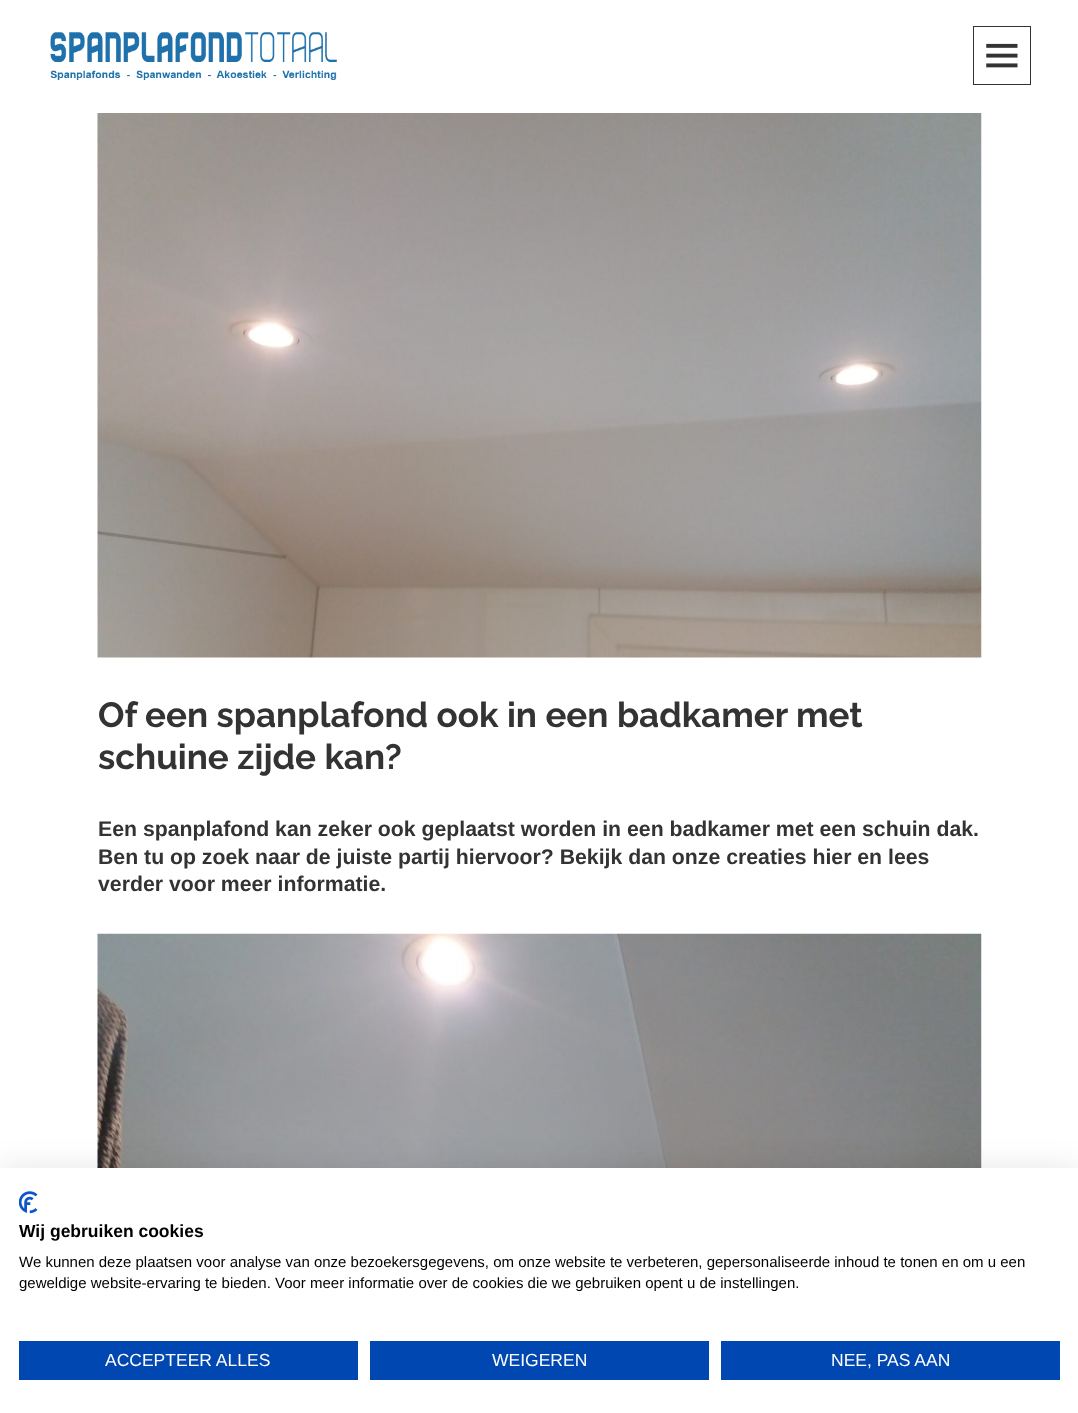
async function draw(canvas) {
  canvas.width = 1078;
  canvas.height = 1413;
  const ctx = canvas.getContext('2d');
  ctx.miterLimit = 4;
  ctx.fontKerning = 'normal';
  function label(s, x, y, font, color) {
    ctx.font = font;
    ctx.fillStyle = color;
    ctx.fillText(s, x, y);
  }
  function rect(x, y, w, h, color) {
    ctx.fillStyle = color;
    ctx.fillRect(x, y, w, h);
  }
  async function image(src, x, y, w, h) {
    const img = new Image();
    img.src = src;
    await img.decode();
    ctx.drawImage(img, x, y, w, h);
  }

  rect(0, 0, 1078, 1413, '#fff');
  await image('assets/img1.png', 50, 32, 287, 48);
  ctx.strokeStyle = '#333';
  ctx.strokeRect(973.5, 26.5, 57, 58);
  await image('assets/img2.png', 986, 43, 32, 25);
  await image('assets/img3.png', 97, 113, 885, 545);
  label('Of een spanplafond ook in een badkamer met', 98, 727, 'bold 35px Raleway', '#333');
  label('schuine zijde kan?', 98, 769, 'bold 35px Raleway', '#333');
  label('Een spanplafond kan zeker ook geplaatst worden in een badkamer met een schuin dak.', 98, 836, 'bold 21.25px Liberation Sans', '#333');
  label('Ben tu op zoek naar de juiste partij hiervoor? Bekijk dan onze creaties hier en lees', 98, 864, 'bold 21.25px Liberation Sans', '#333');
  label('verder voor meer informatie.', 98, 891, 'bold 21.25px Liberation Sans', '#333');
  await image('assets/img4.png', 97, 933, 885, 235);
  ctx.fillStyle = '#0000001a';
  ctx.filter = 'blur(15px)';
  ctx.beginPath();
  ctx.rect(0, 1168, 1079, 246);
  ctx.fill();
  ctx.filter = 'none';
  rect(0, 1168, 1078, 245, '#fff');
  await image('assets/img5.png', 19, 1191, 19, 23);
  label('Wij gebruiken cookies', 19, 1237, 'bold 17.5px Liberation Sans', '#000');
  label('We kunnen deze plaatsen voor analyse van onze bezoekersgegevens, om onze website te verbeteren, gepersonaliseerde inhoud te tonen en om u een', 19, 1267, '15px Liberation Sans', '#000');
  label('geweldige website-ervaring te bieden. Voor meer informatie over de cookies die we gebruiken opent u de instellingen.', 19, 1288, '15px Liberation Sans', '#000');
  rect(19, 1341, 339, 39, '#0047b2');
  label('ACCEPTEER ALLES', 105, 1366, '17.5px Liberation Sans', '#fff');
  rect(370, 1341, 339, 39, '#0047b2');
  label('WEIGEREN', 492, 1366, '17.5px Liberation Sans', '#fff');
  rect(721, 1341, 339, 39, '#0047b2');
  label('NEE, PAS AAN', 831, 1366, '17.5px Liberation Sans', '#fff');
}

draw(document.querySelector('canvas'));
